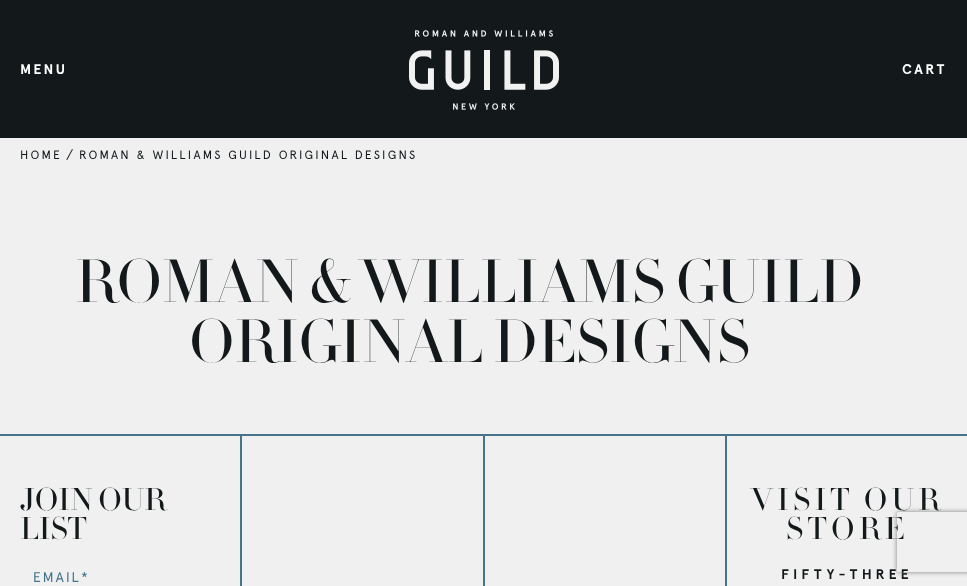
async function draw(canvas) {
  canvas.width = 967;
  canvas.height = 586;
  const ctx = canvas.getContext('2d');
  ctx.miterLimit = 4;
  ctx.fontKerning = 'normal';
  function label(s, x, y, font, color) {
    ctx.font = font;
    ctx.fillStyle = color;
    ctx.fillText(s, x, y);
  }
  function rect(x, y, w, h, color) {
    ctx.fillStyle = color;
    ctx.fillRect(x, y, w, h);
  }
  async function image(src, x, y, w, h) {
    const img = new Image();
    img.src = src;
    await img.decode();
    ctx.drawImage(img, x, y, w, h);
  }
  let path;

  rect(0, 0, 967, 586, '#f0f0f0');
  rect(0, 0, 967, 138, '#13191b');
  ctx.letterSpacing = '2.5px';
  label('MENU', 20, 74, 'bold 14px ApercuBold', '#fff');
  await image('assets/img1.png', 409, 30, 150, 80);
  label('CART', 902, 74, 'bold 14px ApercuBold', '#fff');
  ctx.letterSpacing = '2.3px';
  label('HOME', 20, 159, '12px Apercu', '#13191b');
  ctx.letterSpacing = '0px';
  label('/', 66, 159, '13px Apercu', '#13191b');
  ctx.letterSpacing = '2.3px';
  label('ROMAN & WILLIAMS GUILD ORIGINAL DESIGNS', 79, 159, '12px Apercu', '#13191b');
  ctx.letterSpacing = '0px';
  label('ROMAN & WILLIAMS GUILD', 75, 302, '300 60px Didot', '#13191b');
  label('ORIGINAL DESIGNS', 189, 362, '300 60px Didot', '#13191b');
  rect(0, 434, 967, 2, '#45758b');
  label('JOIN OUR', 20, 510, '300 31px Didot', '#13191b');
  label('LIST', 20, 539, '300 31px Didot', '#13191b');
  ctx.letterSpacing = '2px';
  label('EMAIL*', 33, 582, '14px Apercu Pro', '#45758b');
  rect(240, 436, 2, 150, '#45758b');
  rect(483, 436, 2, 150, '#45758b');
  rect(725, 436, 2, 150, '#45758b');
  ctx.letterSpacing = '4.25px';
  label('VISIT OUR', 751, 510, '300 31px Didot', '#13191b');
  label('STORE', 786, 539, '300 31px Didot', '#13191b');
  label('FIFTY-THREE', 781, 579, 'bold 14px ApercuBold', '#13191b');
  ctx.save();
  path = new Path2D('M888 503H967V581H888ZM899 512H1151C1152 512 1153 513 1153 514V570C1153 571 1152 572 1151 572H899C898 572 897 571 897 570V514C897 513 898 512 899 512Z');
  ctx.clip(path, 'evenodd');
  ctx.fillStyle = '#808080';
  ctx.filter = 'blur(2.5px)';
  ctx.beginPath();
  ctx.roundRect(897, 512, 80, 60, 2);
  ctx.fill();
  ctx.filter = 'none';
  ctx.restore();
}

draw(document.querySelector('canvas'));
